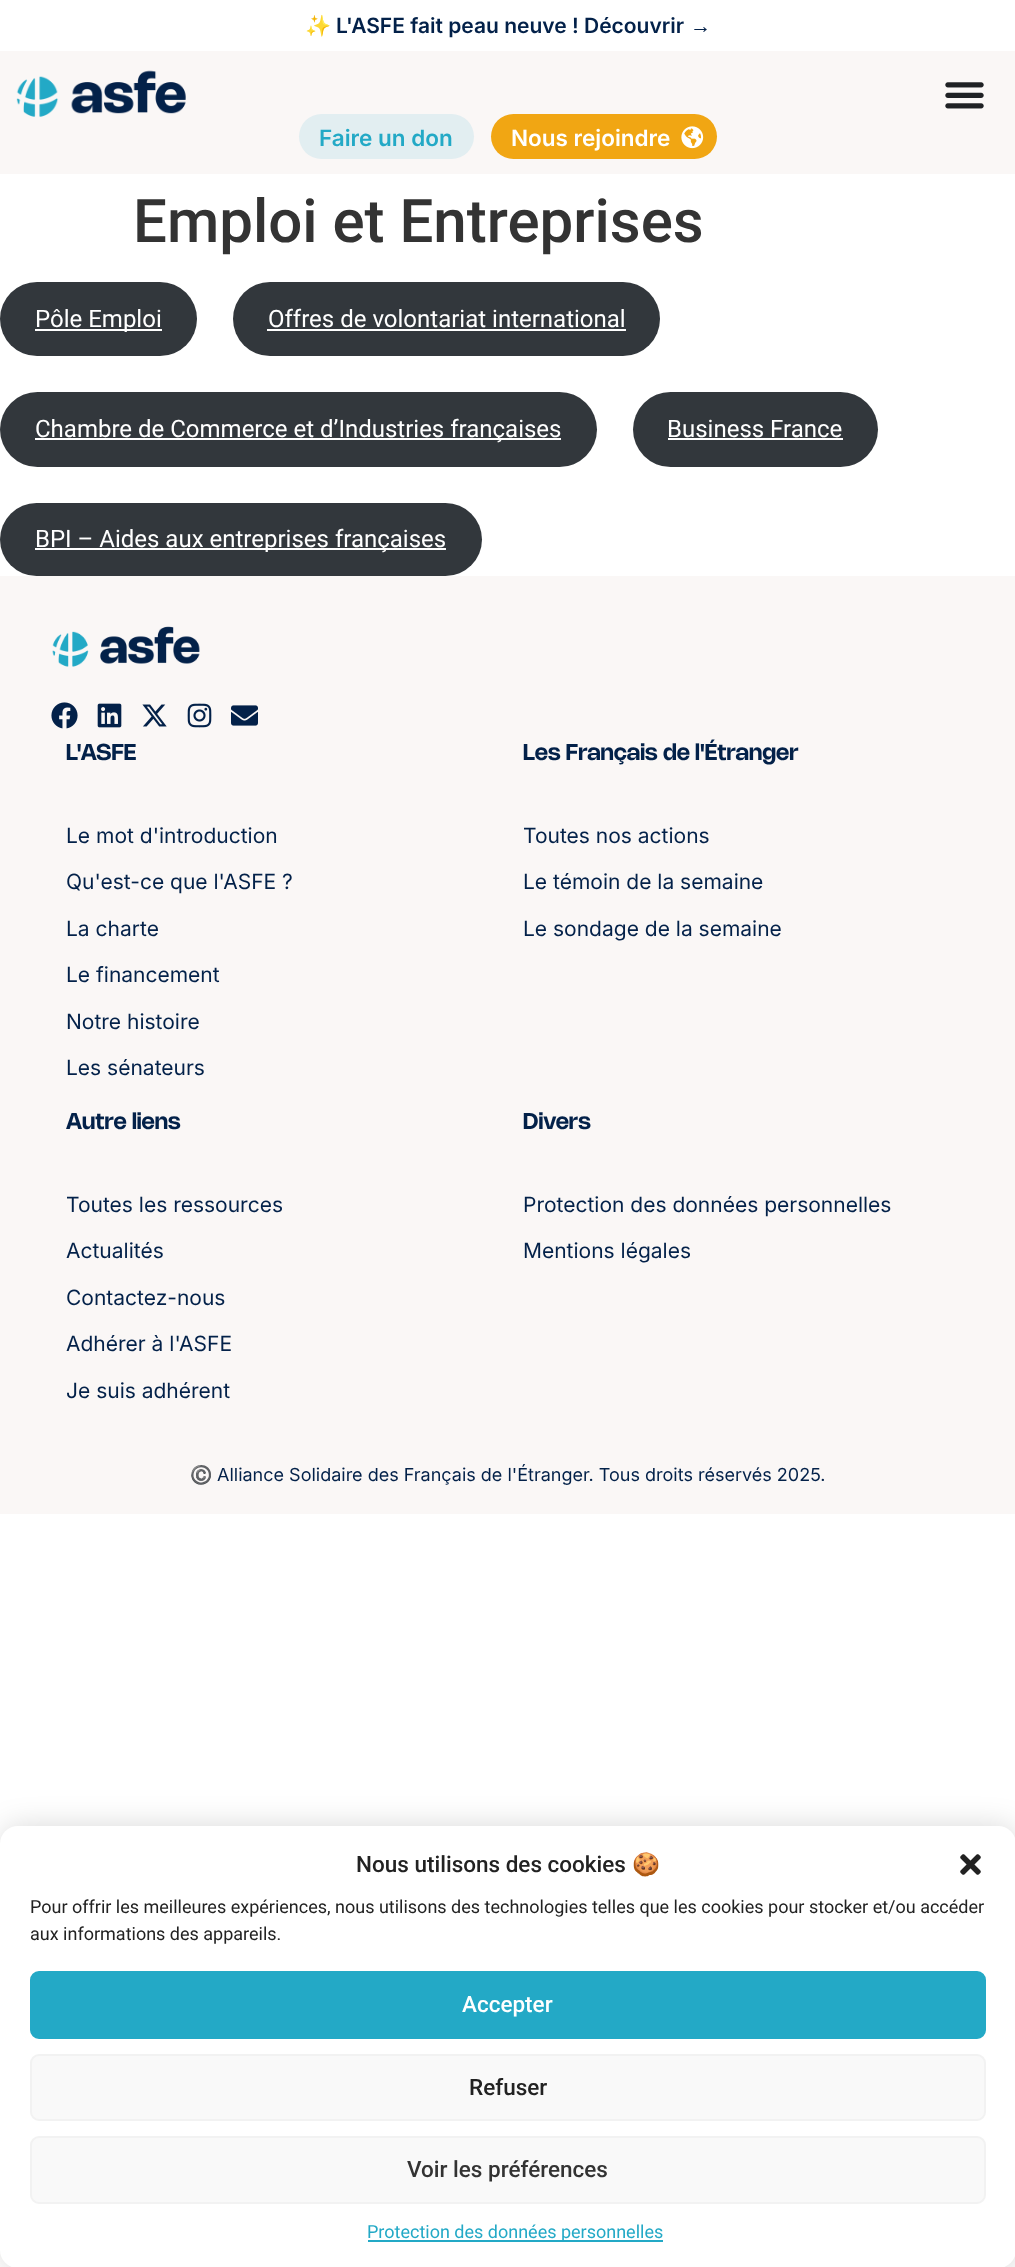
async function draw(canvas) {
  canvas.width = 1015;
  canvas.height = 2267;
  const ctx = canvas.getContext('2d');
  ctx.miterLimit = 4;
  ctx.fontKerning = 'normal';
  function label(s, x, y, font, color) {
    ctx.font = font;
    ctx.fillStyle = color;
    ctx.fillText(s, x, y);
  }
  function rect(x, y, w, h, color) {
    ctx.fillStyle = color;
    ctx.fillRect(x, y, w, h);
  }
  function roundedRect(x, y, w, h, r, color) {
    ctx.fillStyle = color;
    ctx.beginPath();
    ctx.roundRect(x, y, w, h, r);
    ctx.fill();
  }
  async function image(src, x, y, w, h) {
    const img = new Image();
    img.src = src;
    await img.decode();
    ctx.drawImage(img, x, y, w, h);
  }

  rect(0, 0, 1015, 2267, '#fff');
  label('✨', 305, 33, 'bold 21px Noto Color Emoji', '#032149');
  label('L\'ASFE fait peau neuve ! Découvrir', 336, 33, '600 21px Inter', '#032149');
  label('→', 690, 33, 'bold 21px Liberation Sans', '#032149');
  rect(0, 51, 1015, 123, '#faf7f6');
  await image('assets/img1.png', 16, 70, 170, 47);
  await image('assets/img2.png', 945, 82, 39, 27);
  roundedRect(299, 114, 175, 45, 22.5, '#e2eef1');
  label('Faire un don', 319, 146, '600 22.5px Inter', '#23a9c6');
  roundedRect(491, 114, 226, 45, 22.5, '#f1a613');
  label('Nous rejoindre', 511, 146, '600 22.5px Inter', '#fff');
  await image('assets/img3.png', 681, 126, 23, 23);
  label('Emploi et Entreprises', 133, 242, '500 60px Roboto', '#333');
  roundedRect(0, 282, 197, 74, 37, '#32373c');
  rect(35, 329, 127, 2, '#fff');
  label('Pôle Emploi', 35, 327, '24px Roboto', '#fff');
  roundedRect(233, 282, 427, 74, 37, '#32373c');
  label('Offres de volontariat international', 268, 327, '24px Roboto', '#fff');
  rect(267, 329, 359, 2, '#fff');
  roundedRect(0, 392, 597, 75, 37.5, '#32373c');
  rect(35, 438, 526, 2, '#fff');
  label('Chambre de Commerce et d’Industries françaises', 35, 437, '24px Roboto', '#fff');
  roundedRect(633, 392, 245, 75, 37.5, '#32373c');
  label('Business France', 667, 437, '24px Roboto', '#fff');
  rect(668, 438, 175, 2, '#fff');
  roundedRect(0, 503, 482, 73, 36.5, '#32373c');
  rect(35, 548, 411, 2, '#fff');
  label('BPI – Aides aux entreprises françaises', 35, 547, '24px Roboto', '#fff');
  rect(0, 576, 1015, 938, '#faf7f6');
  await image('assets/img4.png', 52, 626, 148, 41);
  await image('assets/img5.png', 51, 702, 27, 27);
  await image('assets/img6.png', 97, 703, 25, 25);
  await image('assets/img7.png', 142, 704, 25, 23);
  await image('assets/img8.png', 187, 703, 25, 25);
  await image('assets/img9.png', 231, 705, 27, 21);
  label('L\'ASFE', 66, 760, '600 22.5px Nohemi', '#032149');
  label('Le mot d\'introduction', 66, 843, '21px Inter', '#032149');
  label('Qu\'est-ce que l\'ASFE ?', 66, 889, '21px Inter', '#032149');
  label('La charte', 66, 936, '21px Inter', '#032149');
  label('Le financement', 66, 982, '21px Inter', '#032149');
  label('Notre histoire', 66, 1029, '21px Inter', '#032149');
  label('Les sénateurs', 66, 1075, '21px Inter', '#032149');
  label('Les Français de l\'Étranger', 523, 760, '600 22.5px Nohemi', '#032149');
  label('Toutes nos actions', 523, 843, '21px Inter', '#032149');
  label('Le témoin de la semaine', 523, 889, '21px Inter', '#032149');
  label('Le sondage de la semaine', 523, 936, '21px Inter', '#032149');
  label('Autre liens', 66, 1129, '600 22.5px Nohemi', '#032149');
  label('Toutes les ressources', 66, 1212, '21px Inter', '#032149');
  label('Actualités', 66, 1258, '21px Inter', '#032149');
  label('Contactez-nous', 66, 1305, '21px Inter', '#032149');
  label('Adhérer à l\'ASFE', 66, 1351, '21px Inter', '#032149');
  label('Je suis adhérent', 66, 1398, '21px Inter', '#032149');
  label('Divers', 523, 1129, '600 22.5px Nohemi', '#032149');
  label('Protection des données personnelles', 523, 1212, '21px Inter', '#032149');
  label('Mentions légales', 523, 1258, '21px Inter', '#032149');
  label('©️', 190, 1481, '18px Noto Color Emoji', '#032149');
  label('Alliance Solidaire des Français de l\'Étranger. Tous droits réservés 2025.', 217, 1481, '18px Inter', '#032149');
  ctx.fillStyle = '#00000029';
  ctx.filter = 'blur(15px)';
  ctx.beginPath();
  ctx.roundRect(2, 1827, 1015, 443, 18);
  ctx.fill();
  ctx.filter = 'none';
  roundedRect(0, 1826, 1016, 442, 18, '#fff');
  label('Nous utilisons des cookies', 356, 1872, '500 22.5px Roboto', '#222');
  label('🍪', 632, 1872, '22.5px Noto Color Emoji', '#222');
  await image('assets/img10.png', 960, 1854, 21, 21);
  label('Pour offrir les meilleures expériences, nous utilisons des technologies telles que les cookies pour stocker et/ou accéder', 30, 1913, '18px Roboto', '#222');
  label('aux informations des appareils.', 30, 1940, '18px Roboto', '#222');
  ctx.fillStyle = '#23a9c6';
  ctx.beginPath();
  ctx.roundRect(31, 1972, 954, 66, 8);
  ctx.fill();
  ctx.strokeStyle = '#23a9c6';
  ctx.lineWidth = 2;
  ctx.stroke();
  label('Accepter', 462, 2012, '500 22.5px Roboto', '#fff');
  ctx.fillStyle = '#f9f9f9';
  ctx.beginPath();
  ctx.roundRect(31, 2055, 954, 65, 8);
  ctx.fill();
  ctx.strokeStyle = '#f2f2f2';
  ctx.stroke();
  label('Refuser', 469, 2095, '500 22.5px Roboto', '#222');
  ctx.fillStyle = '#f9f9f9';
  ctx.beginPath();
  ctx.roundRect(31, 2137, 954, 66, 8);
  ctx.fill();
  ctx.stroke();
  label('Voir les préférences', 407, 2177, '500 22.5px Roboto', '#333');
  rect(368, 2240, 295, 2, '#23a9c6');
  label('Protection des données personnelles', 367, 2238, '18px Roboto', '#23a9c6');
}

draw(document.querySelector('canvas'));
